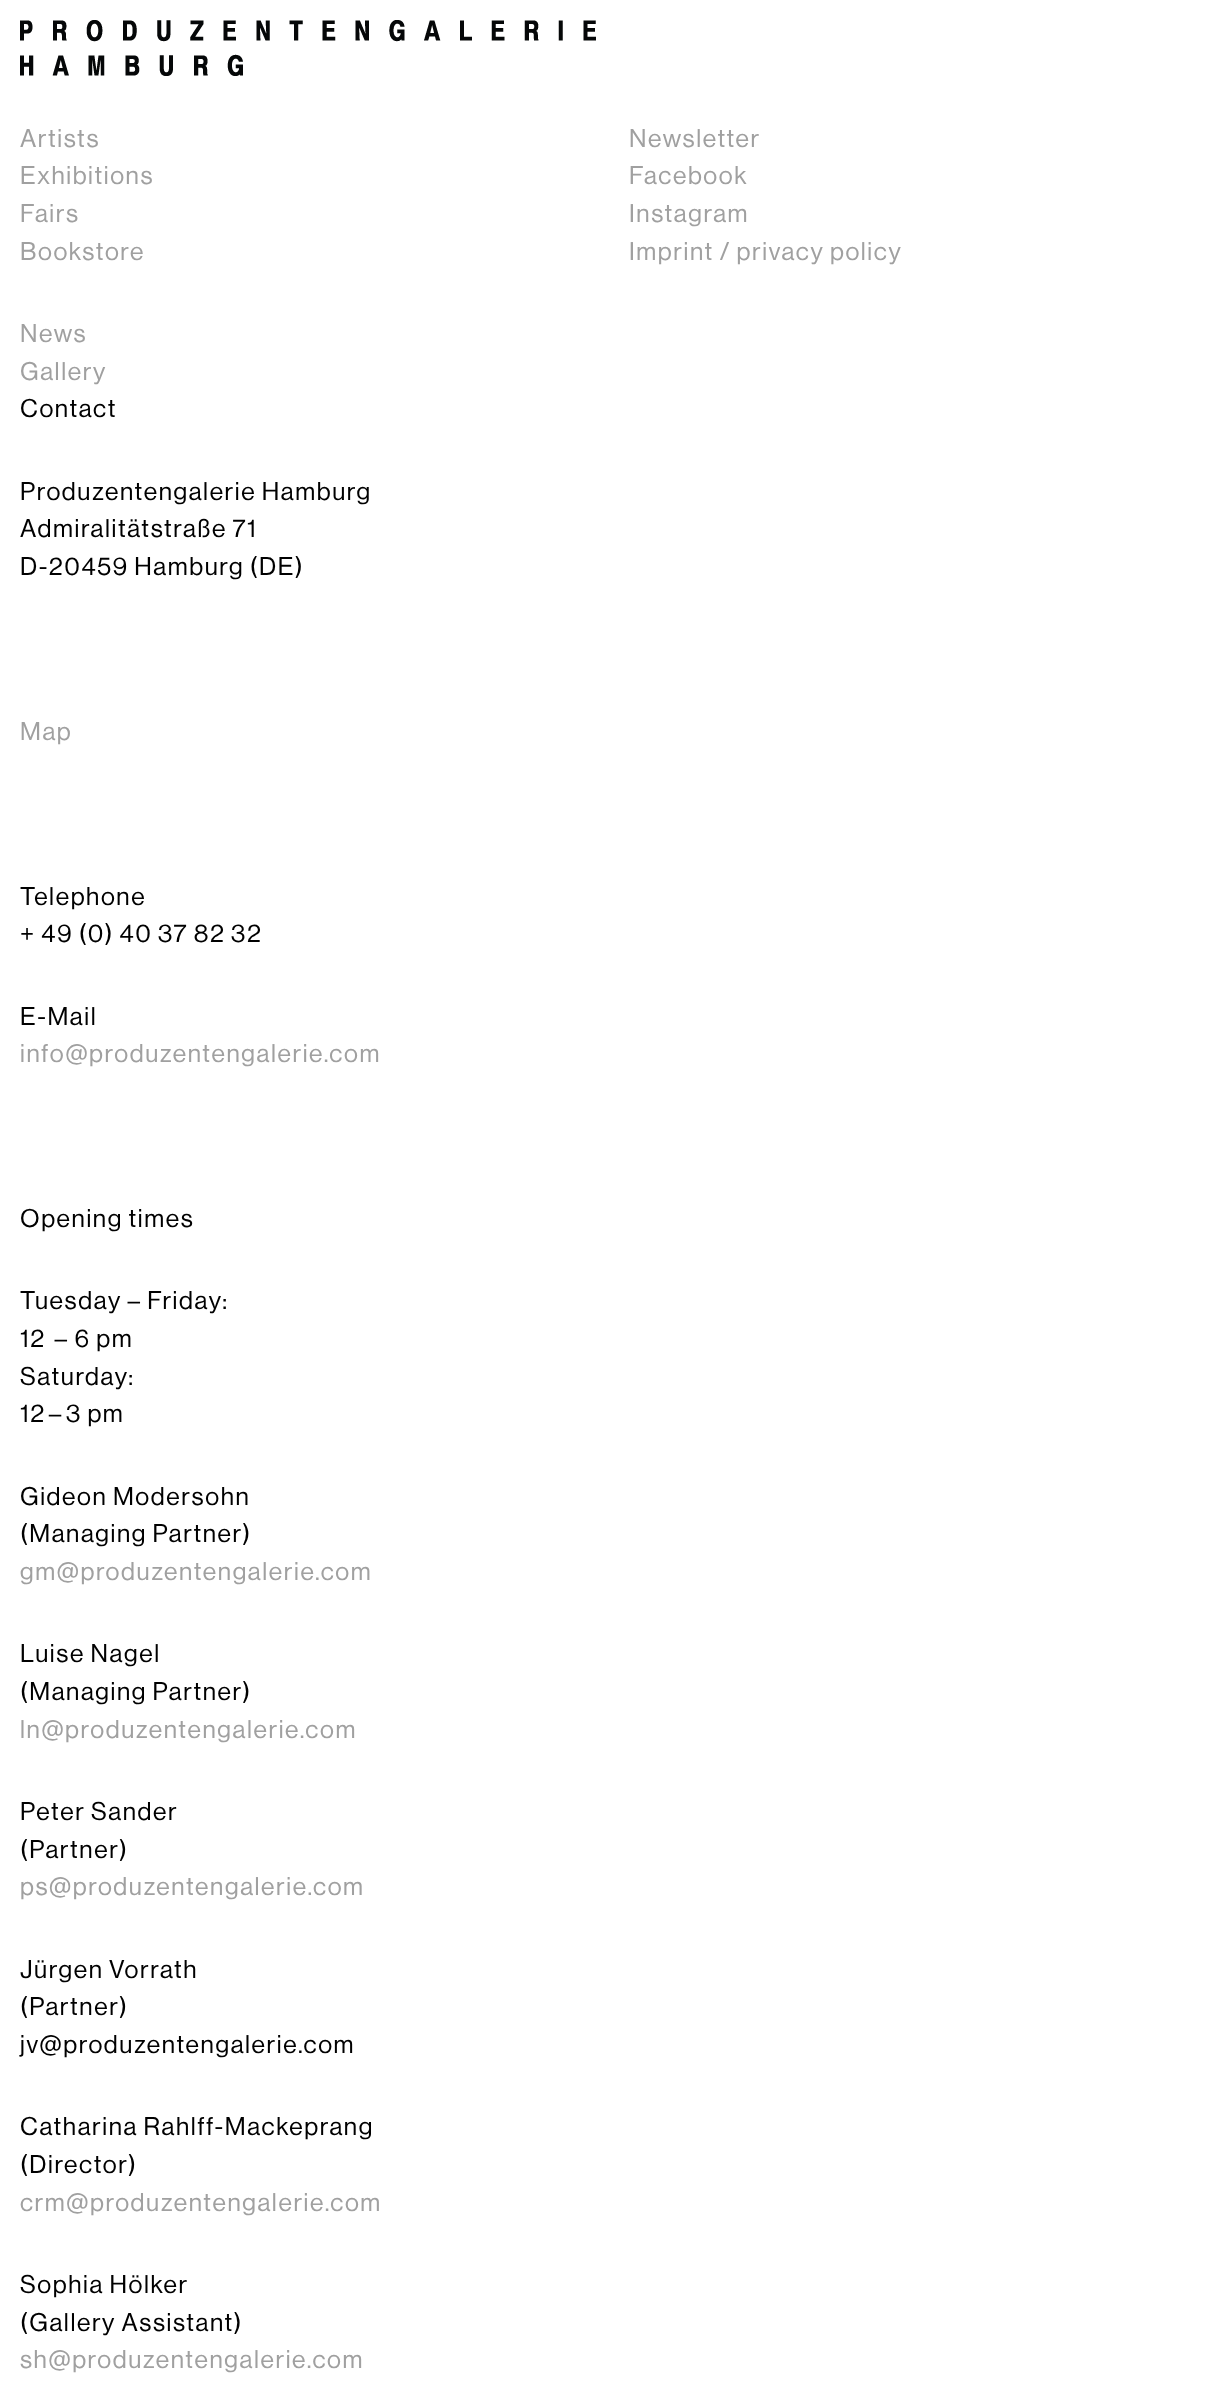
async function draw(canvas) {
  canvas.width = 1217;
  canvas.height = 2391;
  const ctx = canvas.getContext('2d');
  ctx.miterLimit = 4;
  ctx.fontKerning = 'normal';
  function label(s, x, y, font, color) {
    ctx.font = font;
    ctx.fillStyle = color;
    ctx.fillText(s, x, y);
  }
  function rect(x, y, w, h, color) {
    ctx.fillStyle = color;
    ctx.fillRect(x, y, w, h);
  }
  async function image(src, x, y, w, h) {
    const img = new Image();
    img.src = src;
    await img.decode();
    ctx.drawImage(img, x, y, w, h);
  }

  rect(0, 0, 1217, 2391, '#fff');
  ctx.letterSpacing = '1.6px';
  label('Newsletter', 629, 147, '25.1px "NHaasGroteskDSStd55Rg"', '#a0a0a0');
  label('Facebook', 629, 184, '25.1px "NHaasGroteskDSStd55Rg"', '#a0a0a0');
  label('Instagram', 629, 222, '25.1px "NHaasGroteskDSStd55Rg"', '#a0a0a0');
  label('Imprint / privacy policy', 629, 260, '25.1px "NHaasGroteskDSStd55Rg"', '#a0a0a0');
  label('Produzentengalerie Hamburg', 20, 500, '25.1px "NHaasGroteskDSStd55Rg"', '#000');
  label('Admiralitätstraße 71', 20, 537, '25.1px "NHaasGroteskDSStd55Rg"', '#000');
  label('D-20459 Hamburg (DE)', 20, 575, '25.1px "NHaasGroteskDSStd55Rg"', '#000');
  label('Map', 20, 740, '25.1px "NHaasGroteskDSStd55Rg"', '#a0a0a0');
  label('Telephone', 20, 905, '25.1px "NHaasGroteskDSStd55Rg"', '#000');
  label('+ 49 (0) 40 37 82 32', 20, 942, '25.1px "NHaasGroteskDSStd55Rg"', '#000');
  label('E-Mail', 20, 1025, '25.1px "NHaasGroteskDSStd55Rg"', '#000');
  label('info@produzentengalerie.com', 20, 1062, '25.1px "NHaasGroteskDSStd55Rg"', '#a0a0a0');
  label('Opening times', 20, 1227, '25.1px "NHaasGroteskDSStd55Rg"', '#000');
  label('Tuesday – Friday:', 20, 1309, '25.1px "NHaasGroteskDSStd55Rg"', '#000');
  label('12  –  6 pm', 20, 1347, '25.1px "NHaasGroteskDSStd55Rg"', '#000');
  label('Saturday:', 20, 1385, '25.1px "NHaasGroteskDSStd55Rg"', '#000');
  label('12 – 3 pm', 20, 1422, '25.1px "NHaasGroteskDSStd55Rg"', '#000');
  label('Gideon Modersohn', 20, 1505, '25.1px "NHaasGroteskDSStd55Rg"', '#000');
  label('(Managing Partner)', 20, 1542, '25.1px "NHaasGroteskDSStd55Rg"', '#000');
  label('gm@produzentengalerie.com', 20, 1580, '25.1px "NHaasGroteskDSStd55Rg"', '#a0a0a0');
  label('Luise Nagel', 20, 1662, '25.1px "NHaasGroteskDSStd55Rg"', '#000');
  label('(Managing Partner)', 20, 1700, '25.1px "NHaasGroteskDSStd55Rg"', '#000');
  label('ln@produzentengalerie.com', 20, 1738, '25.1px "NHaasGroteskDSStd55Rg"', '#a0a0a0');
  label('Peter Sander', 20, 1820, '25.1px "NHaasGroteskDSStd55Rg"', '#000');
  label('(Partner)', 20, 1858, '25.1px "NHaasGroteskDSStd55Rg"', '#000');
  label('ps@produzentengalerie.com', 20, 1895, '25.1px "NHaasGroteskDSStd55Rg"', '#a0a0a0');
  label('Jürgen Vorrath', 20, 1978, '25.1px "NHaasGroteskDSStd55Rg"', '#000');
  label('(Partner)', 20, 2015, '25.1px "NHaasGroteskDSStd55Rg"', '#000');
  label('jv@produzentengalerie.com', 20, 2053, '25.1px "NHaasGroteskDSStd55Rg"', '#000');
  label('Catharina Rahlff-Mackeprang', 20, 2135, '25.1px "NHaasGroteskDSStd55Rg"', '#000');
  label('(Director)', 20, 2173, '25.1px "NHaasGroteskDSStd55Rg"', '#000');
  label('crm@produzentengalerie.com', 20, 2211, '25.1px "NHaasGroteskDSStd55Rg"', '#a0a0a0');
  label('Sophia Hölker', 20, 2293, '25.1px "NHaasGroteskDSStd55Rg"', '#000');
  label('(Gallery Assistant)', 20, 2331, '25.1px "NHaasGroteskDSStd55Rg"', '#000');
  label('sh@produzentengalerie.com', 20, 2368, '25.1px "NHaasGroteskDSStd55Rg"', '#a0a0a0');
  await image('assets/img1.png', 20, 20, 576, 56);
  label('Artists', 20, 147, '25.1px "NHaasGroteskDSStd55Rg"', '#a0a0a0');
  label('Exhibitions', 20, 184, '25.1px "NHaasGroteskDSStd55Rg"', '#a0a0a0');
  label('Fairs', 20, 222, '25.1px "NHaasGroteskDSStd55Rg"', '#a0a0a0');
  label('Bookstore', 20, 260, '25.1px "NHaasGroteskDSStd55Rg"', '#a0a0a0');
  label('News', 20, 342, '25.1px "NHaasGroteskDSStd55Rg"', '#a0a0a0');
  label('Gallery', 20, 380, '25.1px "NHaasGroteskDSStd55Rg"', '#a0a0a0');
  label('Contact', 20, 417, '25.1px "NHaasGroteskDSStd55Rg"', '#000');
}

draw(document.querySelector('canvas'));
